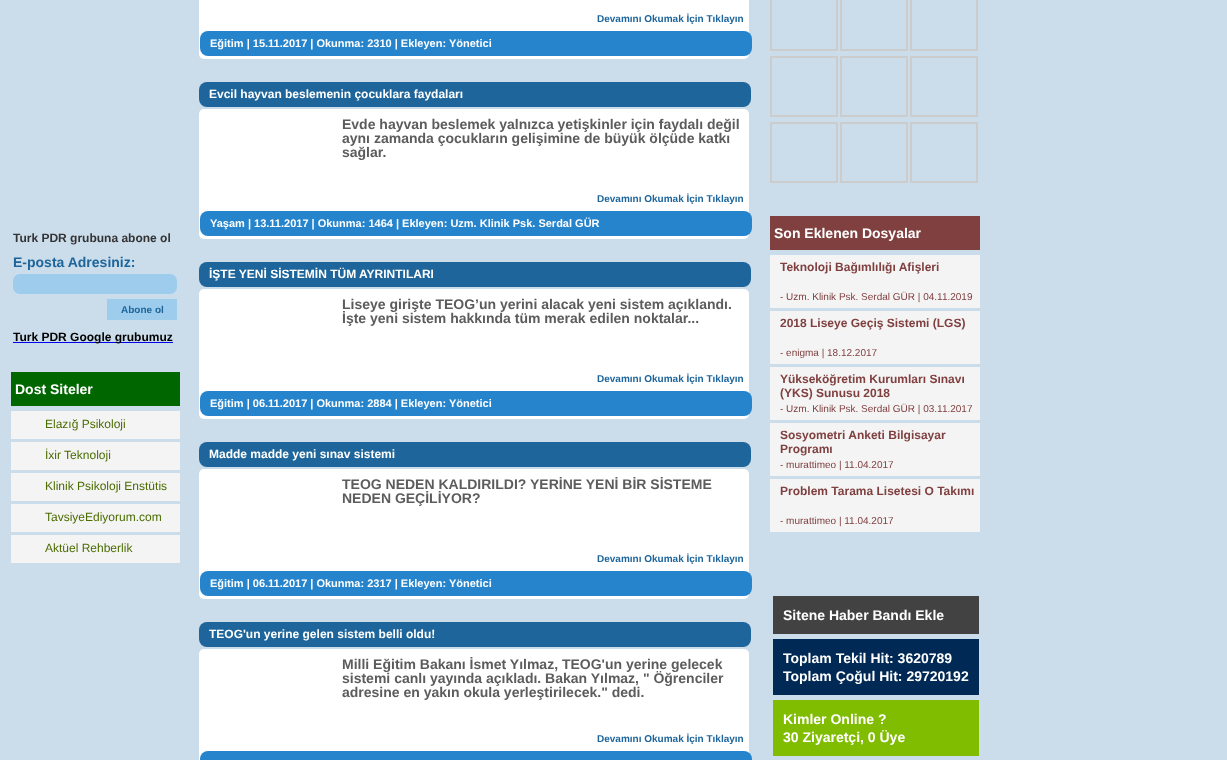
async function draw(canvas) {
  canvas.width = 1227;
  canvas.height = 760;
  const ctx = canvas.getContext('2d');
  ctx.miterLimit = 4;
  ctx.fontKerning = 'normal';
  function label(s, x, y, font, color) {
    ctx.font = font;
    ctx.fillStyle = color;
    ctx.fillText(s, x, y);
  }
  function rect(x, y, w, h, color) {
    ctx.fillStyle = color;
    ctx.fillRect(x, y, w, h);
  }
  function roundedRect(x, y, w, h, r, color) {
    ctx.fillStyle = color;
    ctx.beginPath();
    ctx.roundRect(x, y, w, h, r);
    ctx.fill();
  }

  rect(0, 0, 1227, 760, '#cbdceb');
  label('Turk PDR grubuna abone ol', 13, 242, 'bold 12px Liberation Sans', '#333');
  label('E-posta Adresiniz:', 13, 267, 'bold 14px Liberation Sans', '#1d659a');
  roundedRect(13, 274, 164, 20, 7, '#9ecced');
  rect(107, 299, 70, 21, '#9ecced');
  label('Abone ol', 121, 313, 'bold 10px Liberation Sans', '#1d659a');
  rect(13, 342, 160, 1, '#00e');
  label('Turk PDR Google grubumuz', 13, 341, 'bold 12px Liberation Sans', '#000');
  rect(11, 372, 169, 34, '#060');
  label('Dost Siteler', 15, 394, 'bold 14px Liberation Sans', '#fff');
  rect(11, 411, 169, 28, '#f4f4f4');
  label('Elazığ Psikoloji', 45, 428, '12px Liberation Sans', '#4b6c01');
  rect(11, 442, 169, 28, '#f4f4f4');
  label('İxir Teknoloji', 45, 459, '12px Liberation Sans', '#4b6c01');
  rect(11, 473, 169, 28, '#f4f4f4');
  label('Klinik Psikoloji Enstütis', 45, 490, '12px Liberation Sans', '#4b6c01');
  rect(11, 504, 169, 28, '#f4f4f4');
  label('TavsiyeEdiyorum.com', 45, 521, '12px Liberation Sans', '#4b6c01');
  rect(11, 535, 169, 28, '#f4f4f4');
  label('Aktüel Rehberlik', 45, 552, '12px Liberation Sans', '#4b6c01');
  roundedRect(199, -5, 550, 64, 5, '#fff');
  label('Devamını Okumak İçin Tıklayın', 597, 22, 'bold 10px Liberation Sans', '#1d659a');
  roundedRect(200, 31, 552, 25, 8, '#2684cc');
  label('Eğitim | 15.11.2017 | Okunma: 2310 | Ekleyen: Yönetici', 210, 47, 'bold 11px Liberation Sans', '#fff');
  roundedRect(199, 82, 552, 25, 8, '#1d659a');
  label('Evcil hayvan beslemenin çocuklara faydaları', 209, 98, 'bold 12px Liberation Sans', '#fff');
  roundedRect(199, 109, 550, 130, 5, '#fff');
  label('Evde hayvan beslemek yalnızca yetişkinler için faydalı değil', 342, 129, 'bold 14px Liberation Sans', '#5c5c5c');
  label('aynı zamanda çocukların gelişimine de büyük ölçüde katkı', 342, 143, 'bold 14px Liberation Sans', '#5c5c5c');
  label('sağlar.', 342, 157, 'bold 14px Liberation Sans', '#5c5c5c');
  label('Devamını Okumak İçin Tıklayın', 597, 202, 'bold 10px Liberation Sans', '#1d659a');
  roundedRect(200, 211, 552, 25, 8, '#2684cc');
  label('Yaşam | 13.11.2017 | Okunma: 1464 | Ekleyen: Uzm. Klinik Psk. Serdal GÜR', 210, 227, 'bold 11px Liberation Sans', '#fff');
  roundedRect(199, 262, 552, 25, 8, '#1d659a');
  label('İŞTE YENİ SİSTEMİN TÜM AYRINTILARI', 209, 278, 'bold 12px Liberation Sans', '#fff');
  roundedRect(199, 289, 550, 130, 5, '#fff');
  label('Liseye girişte TEOG’un yerini alacak yeni sistem açıklandı.', 342, 309, 'bold 14px Liberation Sans', '#5c5c5c');
  label('İşte yeni sistem hakkında tüm merak edilen noktalar...', 342, 323, 'bold 14px Liberation Sans', '#5c5c5c');
  label('Devamını Okumak İçin Tıklayın', 597, 382, 'bold 10px Liberation Sans', '#1d659a');
  roundedRect(200, 391, 552, 25, 8, '#2684cc');
  label('Eğitim | 06.11.2017 | Okunma: 2884 | Ekleyen: Yönetici', 210, 407, 'bold 11px Liberation Sans', '#fff');
  roundedRect(199, 442, 552, 25, 8, '#1d659a');
  label('Madde madde yeni sınav sistemi', 209, 458, 'bold 12px Liberation Sans', '#fff');
  roundedRect(199, 469, 550, 130, 5, '#fff');
  label('TEOG NEDEN KALDIRILDI? YERİNE YENİ BİR SİSTEME', 342, 489, 'bold 14px Liberation Sans', '#5c5c5c');
  label('NEDEN GEÇİLİYOR?', 342, 503, 'bold 14px Liberation Sans', '#5c5c5c');
  label('Devamını Okumak İçin Tıklayın', 597, 562, 'bold 10px Liberation Sans', '#1d659a');
  roundedRect(200, 571, 552, 25, 8, '#2684cc');
  label('Eğitim | 06.11.2017 | Okunma: 2317 | Ekleyen: Yönetici', 210, 587, 'bold 11px Liberation Sans', '#fff');
  roundedRect(199, 622, 552, 25, 8, '#1d659a');
  label('TEOG\'un yerine gelen sistem belli oldu!', 209, 638, 'bold 12px Liberation Sans', '#fff');
  roundedRect(199, 649, 550, 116, 5, '#fff');
  label('Milli Eğitim Bakanı İsmet Yılmaz, TEOG\'un yerine gelecek', 342, 669, 'bold 14px Liberation Sans', '#5c5c5c');
  label('sistemi canlı yayında açıkladı. Bakan Yılmaz, " Öğrenciler', 342, 683, 'bold 14px Liberation Sans', '#5c5c5c');
  label('adresine en yakın okula yerleştirilecek." dedi.', 342, 697, 'bold 14px Liberation Sans', '#5c5c5c');
  label('Devamını Okumak İçin Tıklayın', 597, 742, 'bold 10px Liberation Sans', '#1d659a');
  roundedRect(200, 751, 552, 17, 8, '#2684cc');
  ctx.strokeStyle = '#ccc';
  ctx.lineWidth = 2;
  ctx.strokeRect(771, -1, 66, 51);
  ctx.strokeRect(841, -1, 66, 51);
  ctx.strokeRect(911, -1, 66, 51);
  ctx.strokeRect(771, 57, 66, 59);
  ctx.strokeRect(841, 57, 66, 59);
  ctx.strokeRect(911, 57, 66, 59);
  ctx.strokeRect(771, 123, 66, 59);
  ctx.strokeRect(841, 123, 66, 59);
  ctx.strokeRect(911, 123, 66, 59);
  rect(770, 216, 210, 34, '#804040');
  label('Son Eklenen Dosyalar', 774, 238, 'bold 14px Liberation Sans', '#fff');
  rect(770, 255, 210, 53, '#f4f4f4');
  label('Teknoloji Bağımlılığı Afişleri', 780, 271, 'bold 12px Liberation Sans', '#804040');
  label('- Uzm. Klinik Psk. Serdal GÜR | 04.11.2019', 780, 300, '10px Liberation Sans', '#804040');
  rect(770, 311, 210, 53, '#f4f4f4');
  label('2018 Liseye Geçiş Sistemi (LGS)', 780, 327, 'bold 12px Liberation Sans', '#804040');
  label('- enigma | 18.12.2017', 780, 356, '10px Liberation Sans', '#804040');
  rect(770, 367, 210, 53, '#f4f4f4');
  label('Yükseköğretim Kurumları Sınavı', 780, 383, 'bold 12px Liberation Sans', '#804040');
  label('(YKS) Sunusu 2018', 780, 397, 'bold 12px Liberation Sans', '#804040');
  label('- Uzm. Klinik Psk. Serdal GÜR | 03.11.2017', 780, 412, '10px Liberation Sans', '#804040');
  rect(770, 423, 210, 53, '#f4f4f4');
  label('Sosyometri Anketi Bilgisayar', 780, 439, 'bold 12px Liberation Sans', '#804040');
  label('Programı', 780, 453, 'bold 12px Liberation Sans', '#804040');
  label('- murattimeo | 11.04.2017', 780, 468, '10px Liberation Sans', '#804040');
  rect(770, 479, 210, 53, '#f4f4f4');
  label('Problem Tarama Lisetesi O Takımı', 780, 495, 'bold 12px Liberation Sans', '#804040');
  label('- murattimeo | 11.04.2017', 780, 524, '10px Liberation Sans', '#804040');
  rect(773, 596, 206, 38, '#424242');
  label('Sitene Haber Bandı Ekle', 783, 620, 'bold 14px Liberation Sans', '#fff');
  rect(773, 639, 206, 56, '#002955');
  label('Toplam Tekil Hit: 3620789', 783, 663, 'bold 14px Liberation Sans', '#fff');
  label('Toplam Çoğul Hit: 29720192', 783, 681, 'bold 14px Liberation Sans', '#fff');
  rect(773, 700, 206, 56, '#80bd00');
  label('Kimler Online ?', 783, 724, 'bold 14px Liberation Sans', '#fff');
  label('30 Ziyaretçi, 0 Üye', 783, 742, 'bold 14px Liberation Sans', '#fff');
}

draw(document.querySelector('canvas'));
